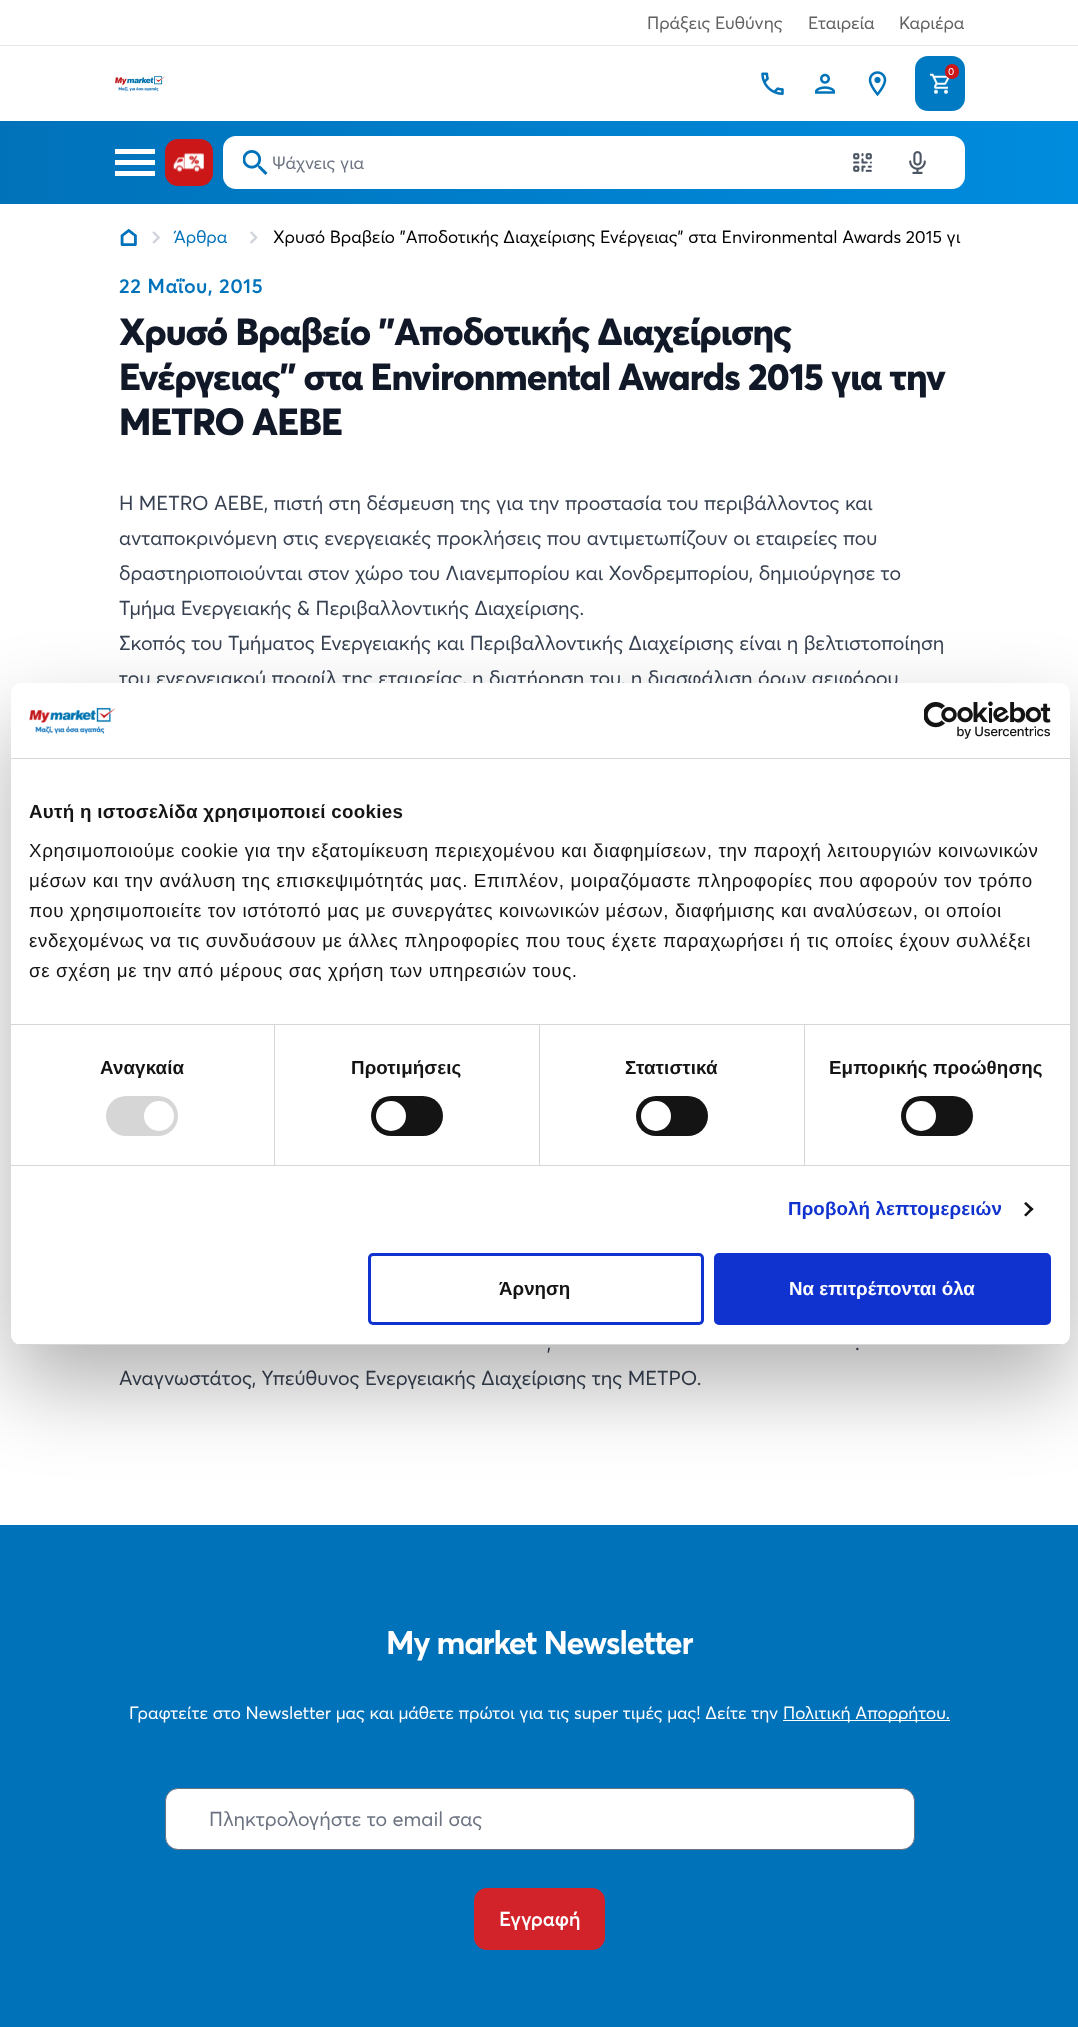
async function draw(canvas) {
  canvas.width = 1078;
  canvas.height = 2027;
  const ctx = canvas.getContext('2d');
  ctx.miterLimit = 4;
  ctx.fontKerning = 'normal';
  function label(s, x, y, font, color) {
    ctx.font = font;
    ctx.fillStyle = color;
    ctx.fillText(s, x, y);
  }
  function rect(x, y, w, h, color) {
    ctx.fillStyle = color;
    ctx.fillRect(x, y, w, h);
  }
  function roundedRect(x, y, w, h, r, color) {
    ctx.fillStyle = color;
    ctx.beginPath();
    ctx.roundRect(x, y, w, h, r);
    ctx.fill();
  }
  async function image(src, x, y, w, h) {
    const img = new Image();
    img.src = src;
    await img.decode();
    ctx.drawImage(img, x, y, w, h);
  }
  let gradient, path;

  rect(0, 0, 1078, 2027, '#fff');
  rect(0, 45, 1078, 1, '#e5e7eb');
  label('Πράξεις Ευθύνης', 647, 29, '17.5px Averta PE', '#606060');
  label('Εταιρεία', 808, 29, '17.5px Averta PE', '#606060');
  label('Καριέρα', 899, 29, '17.5px Averta PE', '#606060');
  await image('assets/img1.png', 761, 72, 23, 23);
  await image('assets/img2.png', 815, 73, 20, 21);
  await image('assets/img3.png', 868, 71, 19, 26);
  roundedRect(915, 56, 50, 55, 13, '#007ac2');
  await image('assets/img4.png', 930, 73, 20, 21);
  roundedRect(945, 64, 14, 15, 7, '#cc1719');
  label('0', 948, 75, '10px Averta PE', '#fff');
  await image('assets/img5.png', 115, 76, 50, 16);
  gradient = ctx.createLinearGradient(0, 163, 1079, 162);
  gradient.addColorStop(0, '#0072ba');
  gradient.addColorStop(1, '#008cde');
  ctx.fillStyle = gradient;
  ctx.fillRect(0, 121, 1078, 83);
  ctx.fillStyle = '#fff';
  path = new Path2D('M115 154V149H155V154ZM115 165H155V160H115ZM115 176H155V171H115Z');
  ctx.fill(path);
  roundedRect(165, 139, 48, 47, 13, '#cc1719');
  await image('assets/img6.png', 173, 153, 31, 19);
  roundedRect(223, 136, 742, 53, 13, '#fff');
  await image('assets/img7.png', 243, 150, 25, 25);
  await image('assets/img8.png', 853, 153, 19, 19);
  await image('assets/img9.png', 909, 151, 17, 23);
  label('Ψάχνεις για', 272, 169, '17.5px Averta PE', '#6b7280');
  await image('assets/img10.png', 120, 229, 17, 17);
  await image('assets/img11.png', 152, 231, 8, 13);
  label('Άρθρα', 174, 243, '17.5px Averta PE', '#0072ba');
  await image('assets/img12.png', 250, 231, 8, 13);
  label('Χρυσό Βραβείο "Αποδοτικής Διαχείρισης Ενέργειας" στα Environmental Awards 2015 γι', 273, 243, '17.5px Averta PE', '#000');
  ctx.letterSpacing = '0.5px';
  label('22 Μαΐου, 2015', 119, 293, '600 20px Averta PE', '#0072ba');
  ctx.letterSpacing = '-0.95px';
  label('Χρυσό Βραβείο "Αποδοτικής Διαχείρισης', 119, 345, '800 37.5px Averta PE', '#111827');
  label('Ενέργειας" στα Environmental Awards 2015 για την', 119, 390, '800 37.5px Averta PE', '#111827');
  label('METRO ΑΕΒΕ', 119, 435, '800 37.5px Averta PE', '#111827');
  ctx.letterSpacing = '0px';
  label('Η METRO AEBE, πιστή στη δέσμευση της για την προστασία του περιβάλλοντος και', 119, 510, '20px Averta PE', '#374151');
  label('ανταποκρινόμενη στις ενεργειακές προκλήσεις που αντιμετωπίζουν οι εταιρείες που', 119, 545, '20px Averta PE', '#374151');
  label('δραστηριοποιούνται στον χώρο του Λιανεμπορίου και Χονδρεμπορίου, δημιούργησε το', 119, 580, '20px Averta PE', '#374151');
  label('Τμήμα Ενεργειακής & Περιβαλλοντικής Διαχείρισης.', 119, 615, '20px Averta PE', '#374151');
  label('Σκοπός του Τμήματος Ενεργειακής και Περιβαλλοντικής Διαχείρισης είναι η βελτιστοποίηση', 119, 650, '20px Averta PE', '#374151');
  label('του ενεργειακού προφίλ της εταιρείας, η διατήρηση του, η διασφάλιση όρων αειφόρου', 119, 685, '20px Averta PE', '#374151');
  label(',', 547, 1350, '20px Averta PE', '#374151');
  label('.', 855, 1350, '20px Averta PE', '#374151');
  label('Αναγνωστάτος, Υπεύθυνος Ενεργειακής Διαχείρισης της ΜΕΤΡΟ.', 119, 1385, '20px Averta PE', '#374151');
  ctx.fillStyle = '#0000004d';
  ctx.filter = 'blur(42.5px)';
  ctx.beginPath();
  ctx.roundRect(11, 723, 1059, 662, 10);
  ctx.fill();
  ctx.filter = 'none';
  roundedRect(11, 683, 1059, 662, 10, '#fff');
  rect(11, 758, 1059, 1, '#d6d6d6');
  await image('assets/img13.png', 29, 707, 87, 27);
  await image('assets/img14.png', 924, 701, 127, 38);
  rect(11, 1024, 1059, 1, '#d6d6d6');
  ctx.letterSpacing = '0.3px';
  label('Αυτή η ιστοσελίδα χρησιμοποιεί cookies', 29, 818, 'bold 18.75px Liberation Sans', '#141414');
  ctx.letterSpacing = '0.62px';
  label('Χρησιμοποιούμε cookie για την εξατομίκευση περιεχομένου και διαφημίσεων, την παροχή λειτουργιών κοινωνικών', 29, 857, '18.75px Liberation Sans', '#141414');
  label('μέσων και την ανάλυση της επισκεψιμότητάς μας. Επιπλέον, μοιραζόμαστε πληροφορίες που αφορούν τον τρόπο', 29, 887, '18.75px Liberation Sans', '#141414');
  label('που χρησιμοποιείτε τον ιστότοπό μας με συνεργάτες κοινωνικών μέσων, διαφήμισης και αναλύσεων, οι οποίοι', 29, 917, '18.75px Liberation Sans', '#141414');
  label('ενδεχομένως να τις συνδυάσουν με άλλες πληροφορίες που τους έχετε παραχωρήσει ή τις οποίες έχουν συλλέξει', 29, 947, '18.75px Liberation Sans', '#141414');
  label('σε σχέση με την από μέρους σας χρήση των υπηρεσιών τους.', 29, 977, '18.75px Liberation Sans', '#141414');
  rect(11, 1165, 1059, 1, '#d6d6d6');
  rect(274, 1025, 1, 140, '#d6d6d6');
  ctx.letterSpacing = '0.1px';
  label('Αναγκαία', 100, 1074, 'bold 18.75px Liberation Sans', '#141414');
  roundedRect(106, 1096, 72, 40, 20, '#d6d6d6');
  ctx.fillStyle = '#fff';
  ctx.beginPath();
  ctx.arc(159, 1116, 15, 0, 2 * Math.PI);
  ctx.fill();
  rect(539, 1025, 1, 140, '#d6d6d6');
  label('Προτιμήσεις', 351, 1074, 'bold 18.75px Liberation Sans', '#141414');
  roundedRect(371, 1096, 72, 40, 20, '#141414');
  ctx.fillStyle = '#fff';
  ctx.beginPath();
  ctx.arc(391, 1116, 15, 0, 2 * Math.PI);
  ctx.fill();
  rect(804, 1025, 1, 140, '#d6d6d6');
  label('Στατιστικά', 625, 1074, 'bold 18.75px Liberation Sans', '#141414');
  roundedRect(636, 1096, 72, 40, 20, '#141414');
  ctx.fillStyle = '#fff';
  ctx.beginPath();
  ctx.arc(656, 1116, 15, 0, 2 * Math.PI);
  ctx.fill();
  label('Εμπορικής προώθησης', 829, 1074, 'bold 18.75px Liberation Sans', '#141414');
  roundedRect(901, 1096, 72, 40, 20, '#141414');
  ctx.fillStyle = '#fff';
  ctx.beginPath();
  ctx.arc(921, 1116, 15, 0, 2 * Math.PI);
  ctx.fill();
  label('Προβολή λεπτομερειών', 788, 1215, 'bold 18.75px Liberation Sans', '#1032cf');
  ctx.fillStyle = '#141414';
  path = new Path2D('M1026 1202L1033.5 1209L1031.5 1211L1024 1203.5Z');
  ctx.fill(path);
  path = new Path2D('M1031.5 1207.5L1033.5 1209L1026 1216.5L1024 1215Z');
  ctx.fill(path);
  ctx.save();
  ctx.beginPath();
  ctx.roundRect(11, 683, 1059, 662, 10);
  ctx.clip();
  rect(11, 1344, 1059, 1, '#d6d6d6');
  ctx.restore();
  ctx.beginPath();
  ctx.roundRect(369.5, 1254.5, 333, 69, 3.5);
  ctx.strokeStyle = '#1032cf';
  ctx.lineWidth = 3;
  ctx.stroke();
  ctx.letterSpacing = '0px';
  label('Άρνηση', 499, 1295, 'bold 18.75px Liberation Sans', '#141414');
  ctx.fillStyle = '#1032cf';
  ctx.beginPath();
  ctx.roundRect(715.5, 1254.5, 334, 69, 3.5);
  ctx.fill();
  ctx.stroke();
  label('Να επιτρέπονται όλα', 789, 1295, 'bold 18.75px Liberation Sans', '#fff');
  rect(0, 1525, 1078, 502, '#0072ba');
  ctx.letterSpacing = '-1.25px';
  label('My market Newsletter', 386, 1654, 'bold 32.5px Averta PE', '#fff');
  ctx.letterSpacing = '0px';
  label('Γραφτείτε στο Newsletter μας και μάθετε πρώτοι για τις super τιμές μας! Δείτε την', 129, 1719, '17.5px Averta PE', '#fff');
  rect(783, 1720, 167, 1, '#fff');
  label('Πολιτική Απορρήτου.', 783, 1719, '17.5px Averta PE', '#fff');
  ctx.beginPath();
  ctx.roundRect(165.5, 1788.5, 749, 61, 12.5);
  ctx.fill();
  ctx.strokeStyle = '#6b7280';
  ctx.lineWidth = 1;
  ctx.stroke();
  label('Πληκτρολογήστε το email σας', 209, 1826, '20px Averta PE', '#6b7280');
  roundedRect(474, 1888, 131, 62, 13, '#d2232a');
  label('Εγγραφή', 499, 1926, '600 20px Averta PE', '#fff');
}

draw(document.querySelector('canvas'));
